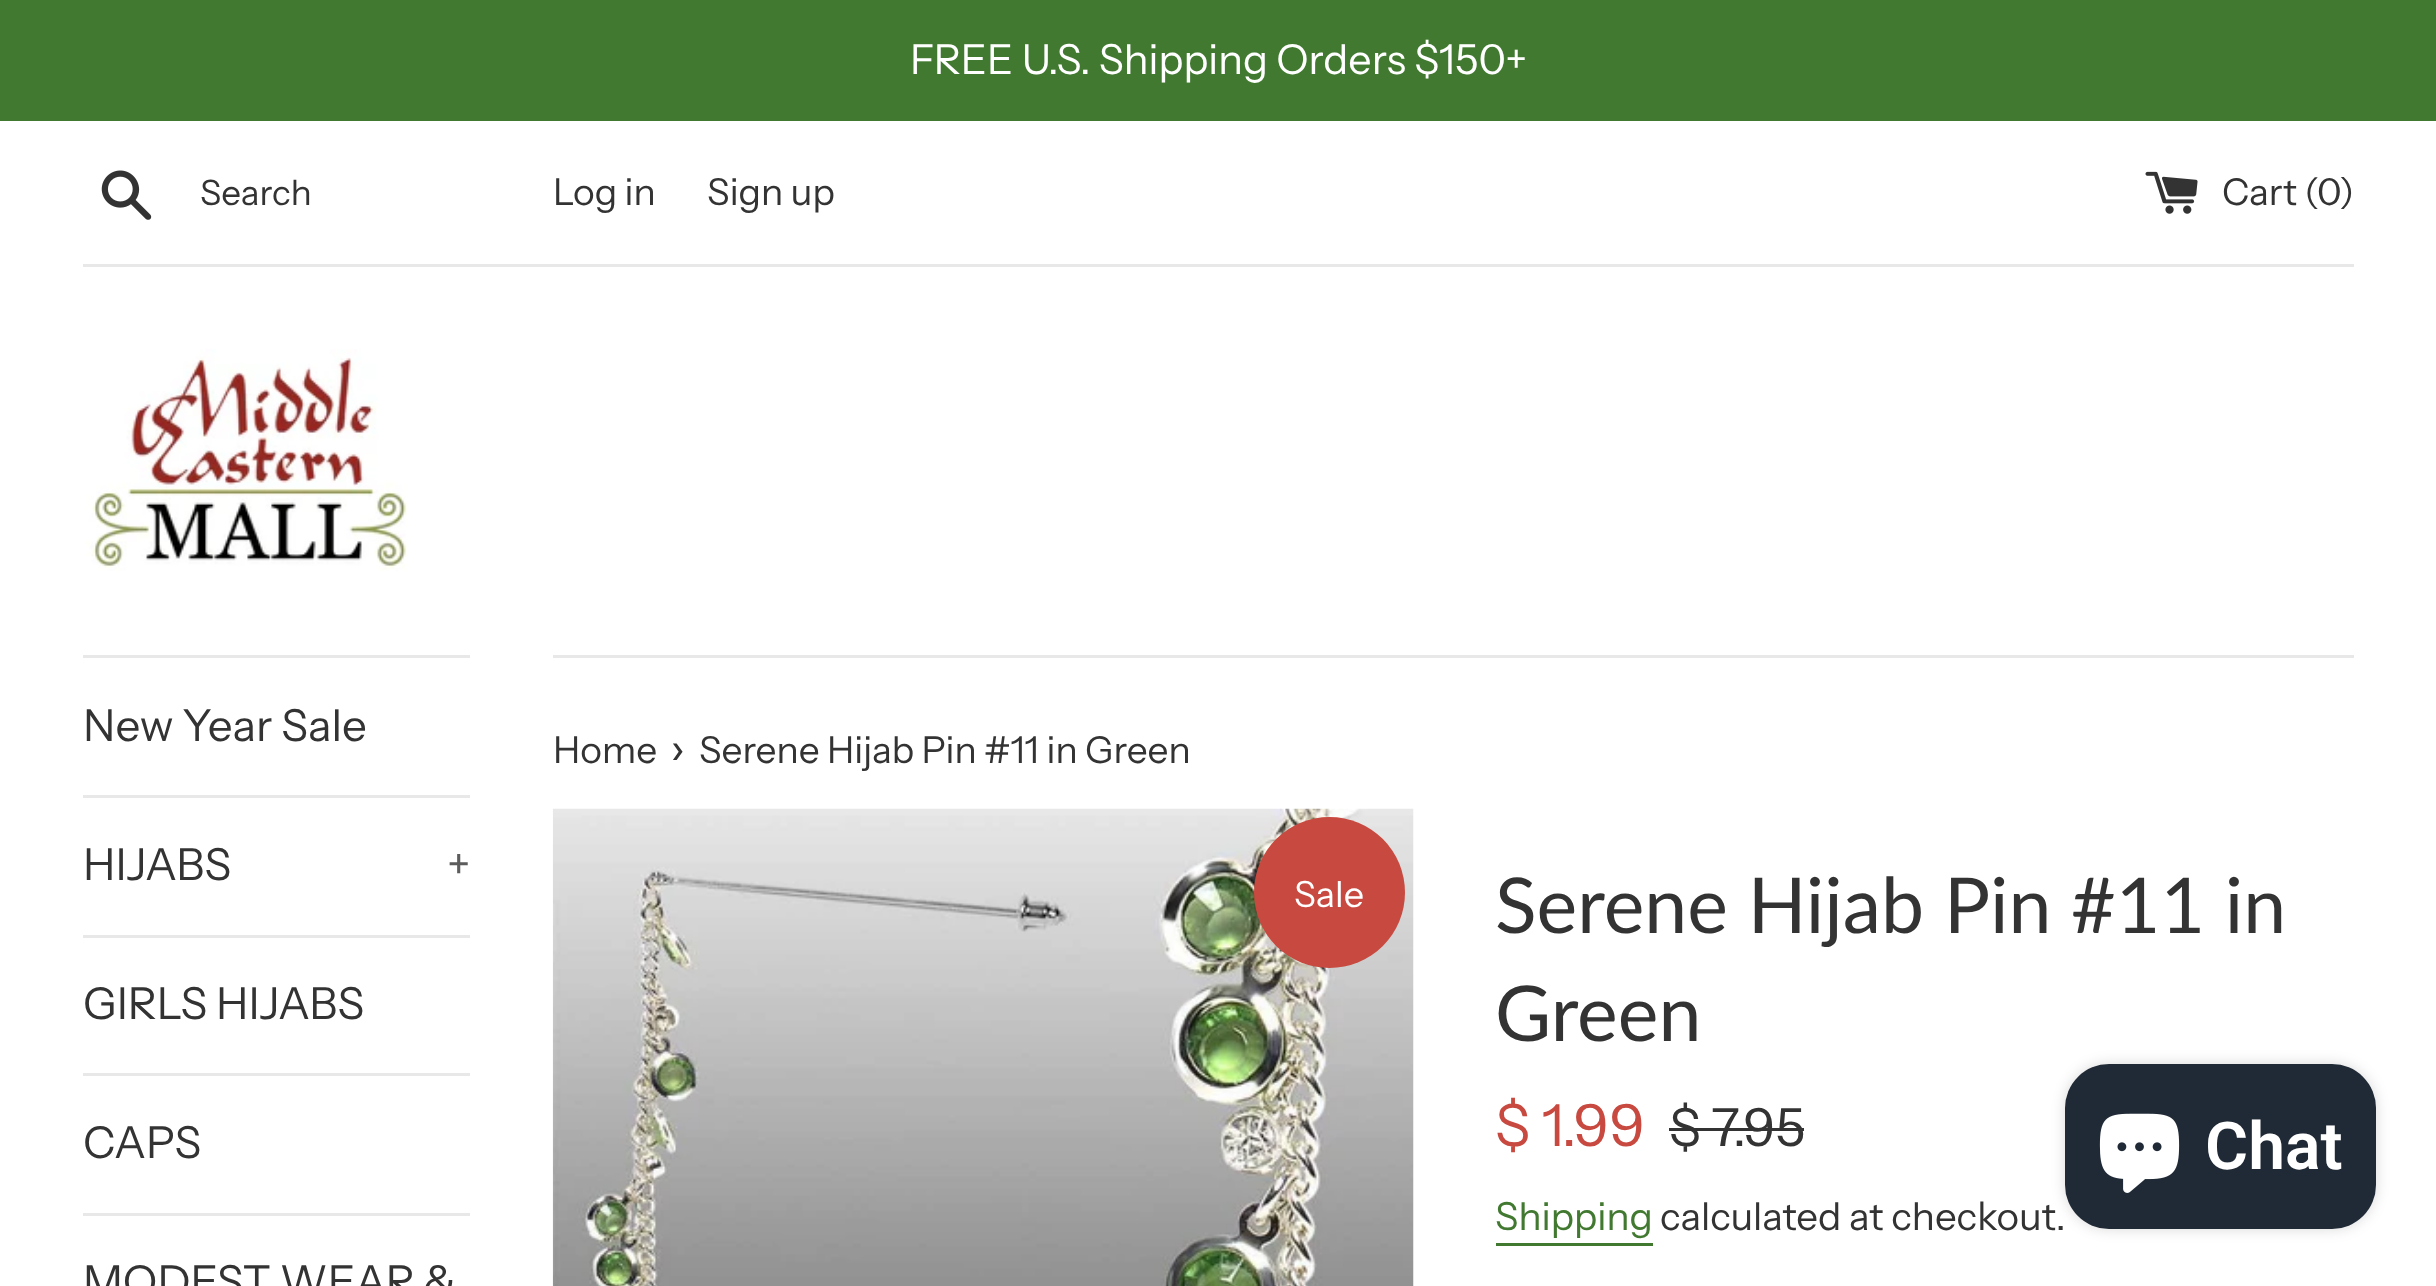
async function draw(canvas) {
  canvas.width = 2436;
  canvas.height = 1286;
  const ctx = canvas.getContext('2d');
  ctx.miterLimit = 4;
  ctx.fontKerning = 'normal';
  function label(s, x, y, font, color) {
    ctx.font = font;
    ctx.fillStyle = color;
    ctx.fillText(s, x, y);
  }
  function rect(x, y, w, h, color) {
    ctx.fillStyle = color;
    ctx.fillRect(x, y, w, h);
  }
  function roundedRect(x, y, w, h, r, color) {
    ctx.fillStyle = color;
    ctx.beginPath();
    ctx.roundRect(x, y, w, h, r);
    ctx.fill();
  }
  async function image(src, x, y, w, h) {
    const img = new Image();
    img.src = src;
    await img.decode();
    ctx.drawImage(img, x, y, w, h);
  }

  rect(0, 0, 2436, 1286, '#fff');
  rect(0, 0, 2436, 121, '#427930');
  label('FREE U.S. Shipping Orders $150+', 910, 74, '41.25px Instrument Sans', '#fff');
  await image('assets/img1.png', 101, 170, 51, 50);
  label('Search', 200, 205, '35px Instrument Sans', '#333');
  label('Log in', 553, 205, '37.1px Instrument Sans', '#333');
  label('Sign up', 707, 205, '37.1px Instrument Sans', '#333');
  await image('assets/img2.png', 2145, 171, 53, 43);
  label('Cart (', 2222, 205, '37.1px Instrument Sans', '#333');
  label('0', 2317, 205, '37.1px Instrument Sans', '#333');
  label(')', 2339, 205, '37.1px Instrument Sans', '#333');
  rect(83, 264, 2271, 3, '#e8e8e8');
  await image('assets/img3.png', 86, 349, 321, 222);
  rect(83, 655, 387, 3, '#e8e8e8');
  rect(83, 795, 387, 3, '#e8e8e8');
  label('New Year Sale', 83, 741, '44px Instrument Sans', '#333');
  rect(83, 935, 387, 3, '#e8e8e8');
  label('HIJABS', 83, 880, '44px Instrument Sans', '#333');
  label('+', 447, 880, '44px Instrument Sans', '#5c5c5c');
  rect(83, 1073, 387, 3, '#e8e8e8');
  label('GIRLS HIJABS', 83, 1019, '44px Instrument Sans', '#333');
  rect(83, 1213, 387, 3, '#e8e8e8');
  label('CAPS', 83, 1158, '44px Instrument Sans', '#333');
  label('MODEST WEAR &', 83, 1297, '44px Instrument Sans', '#333');
  rect(553, 655, 1801, 3, '#e8e8e8');
  label('Home', 553, 763, '37.1px Instrument Sans', '#333');
  label('›', 670, 763, '45px Instrument Sans', '#333');
  label('Serene Hijab Pin #11 in Green', 699, 763, '37.1px Instrument Sans', '#333');
  await image('assets/img4.png', 552, 808, 862, 478);
  ctx.fillStyle = '#c8493f';
  ctx.beginPath();
  ctx.arc(1329.5, 892.5, 75.5, 0, 2 * Math.PI);
  ctx.fill();
  label('Sale', 1294, 907, '36px Instrument Sans', '#fff');
  label('Serene Hijab Pin #11 in', 1495, 933, '77px Lato', '#333');
  label('Green', 1495, 1041, '77px Lato', '#333');
  label('$ 1.99', 1495, 1146, '58px Instrument Sans', '#c8493f');
  label('$ 7.95', 1669, 1146, '52.5px Instrument Sans', '#333');
  rect(1669, 1128, 135, 3, '#333');
  label('Shipping', 1495, 1230, '38.5px Instrument Sans', '#427930');
  rect(1496, 1243, 157, 3, '#427930');
  label('calculated at checkout.', 1660, 1230, '38.5px Instrument Sans', '#333');
  ctx.fillStyle = '#00000026';
  ctx.filter = 'blur(7px)';
  ctx.beginPath();
  ctx.roundRect(2065, 1064, 311, 165, 44);
  ctx.fill();
  ctx.filter = 'none';
  roundedRect(2065, 1064, 311, 165, 44, '#202a36');
  await image('assets/img5.png', 2099, 1113, 81, 80);
  label('Chat', 2205, 1169, '600 66px Roboto', '#fff');
}

draw(document.querySelector('canvas'));
